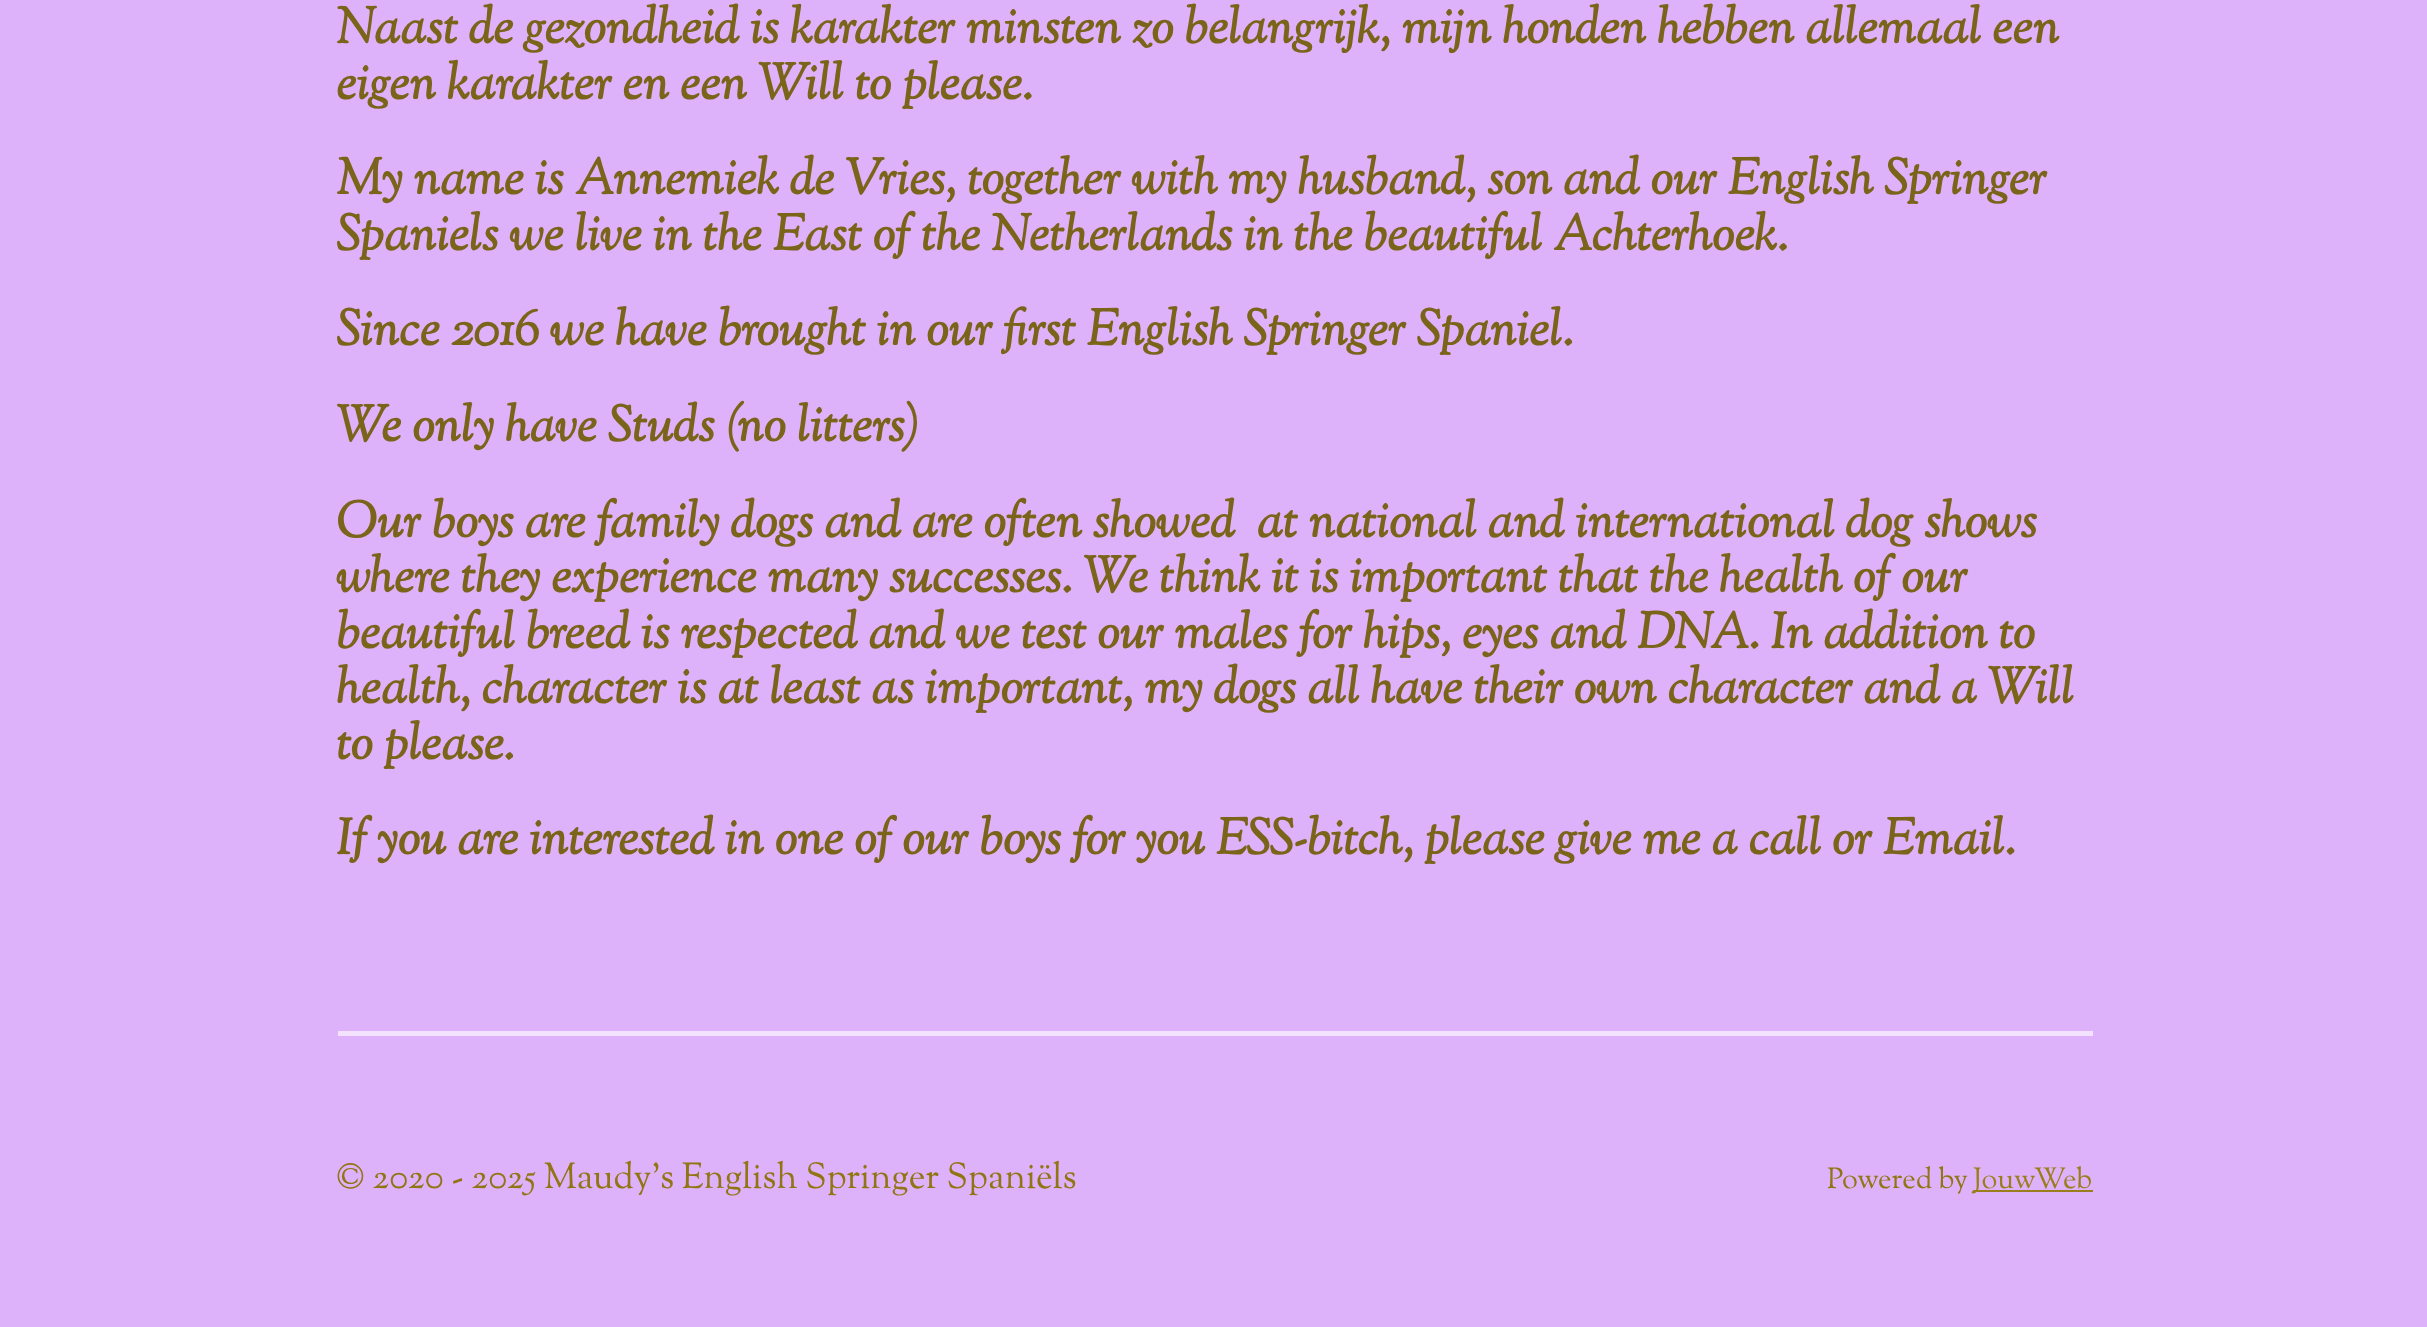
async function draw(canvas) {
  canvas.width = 2427;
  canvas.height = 1327;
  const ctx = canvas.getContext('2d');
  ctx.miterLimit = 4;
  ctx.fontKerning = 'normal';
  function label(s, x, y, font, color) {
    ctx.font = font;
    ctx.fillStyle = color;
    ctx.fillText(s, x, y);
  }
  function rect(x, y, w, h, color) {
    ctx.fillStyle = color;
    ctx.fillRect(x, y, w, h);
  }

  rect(0, 0, 2427, 1327, '#deb2fa');
  label('Naast de gezondheid is karakter minsten zo belangrijk, mijn honden hebben allemaal een', 336, 43, 'italic bold 50.4px Sorts Mill Goudy', '#79641a');
  label('eigen karakter en een Will to please.', 336, 99, 'italic bold 50.4px Sorts Mill Goudy', '#79641a');
  label('My name is Annemiek de Vries, together with my husband, son and our English Springer', 336, 194, 'italic bold 50.4px Sorts Mill Goudy', '#79641a');
  label('Spaniels we live in the East of the Netherlands in the beautiful Achterhoek.', 336, 250, 'italic bold 50.4px Sorts Mill Goudy', '#79641a');
  label('Since 2016 we have brought in our first English Springer Spaniel.', 336, 345, 'italic bold 50.4px Sorts Mill Goudy', '#79641a');
  label('We only have Studs (no litters)', 336, 441, 'italic bold 50.4px Sorts Mill Goudy', '#79641a');
  label('Our boys are family dogs and are often showed  at national and international dog shows', 336, 537, 'italic bold 50.4px Sorts Mill Goudy', '#79641a');
  label('where they experience many successes. We think it is important that the health of our', 336, 592, 'italic bold 50.4px Sorts Mill Goudy', '#79641a');
  label('beautiful breed is respected and we test our males for hips, eyes and DNA. In addition to', 336, 648, 'italic bold 50.4px Sorts Mill Goudy', '#79641a');
  label('health, character is at least as important, my dogs all have their own character and a Will', 336, 703, 'italic bold 50.4px Sorts Mill Goudy', '#79641a');
  label('to please.', 336, 759, 'italic bold 50.4px Sorts Mill Goudy', '#79641a');
  label('If you are interested in one of our boys for you ESS-bitch, please give me a call or Email.', 336, 854, 'italic bold 50.4px Sorts Mill Goudy', '#79641a');
  rect(338, 1031, 1755, 5, '#f3e2fd');
  label('© 2020 - 2025 Maudy\'s English Springer Spaniëls', 336, 1188, '36px Sorts Mill Goudy', '#917513');
  label('Powered by', 1827, 1188, '29px Sorts Mill Goudy', '#917513');
  rect(1973, 1190, 120, 2, '#9a7e1e');
  label('JouwWeb', 1973, 1188, '29px Sorts Mill Goudy', '#9a7e1e');
}

draw(document.querySelector('canvas'));
